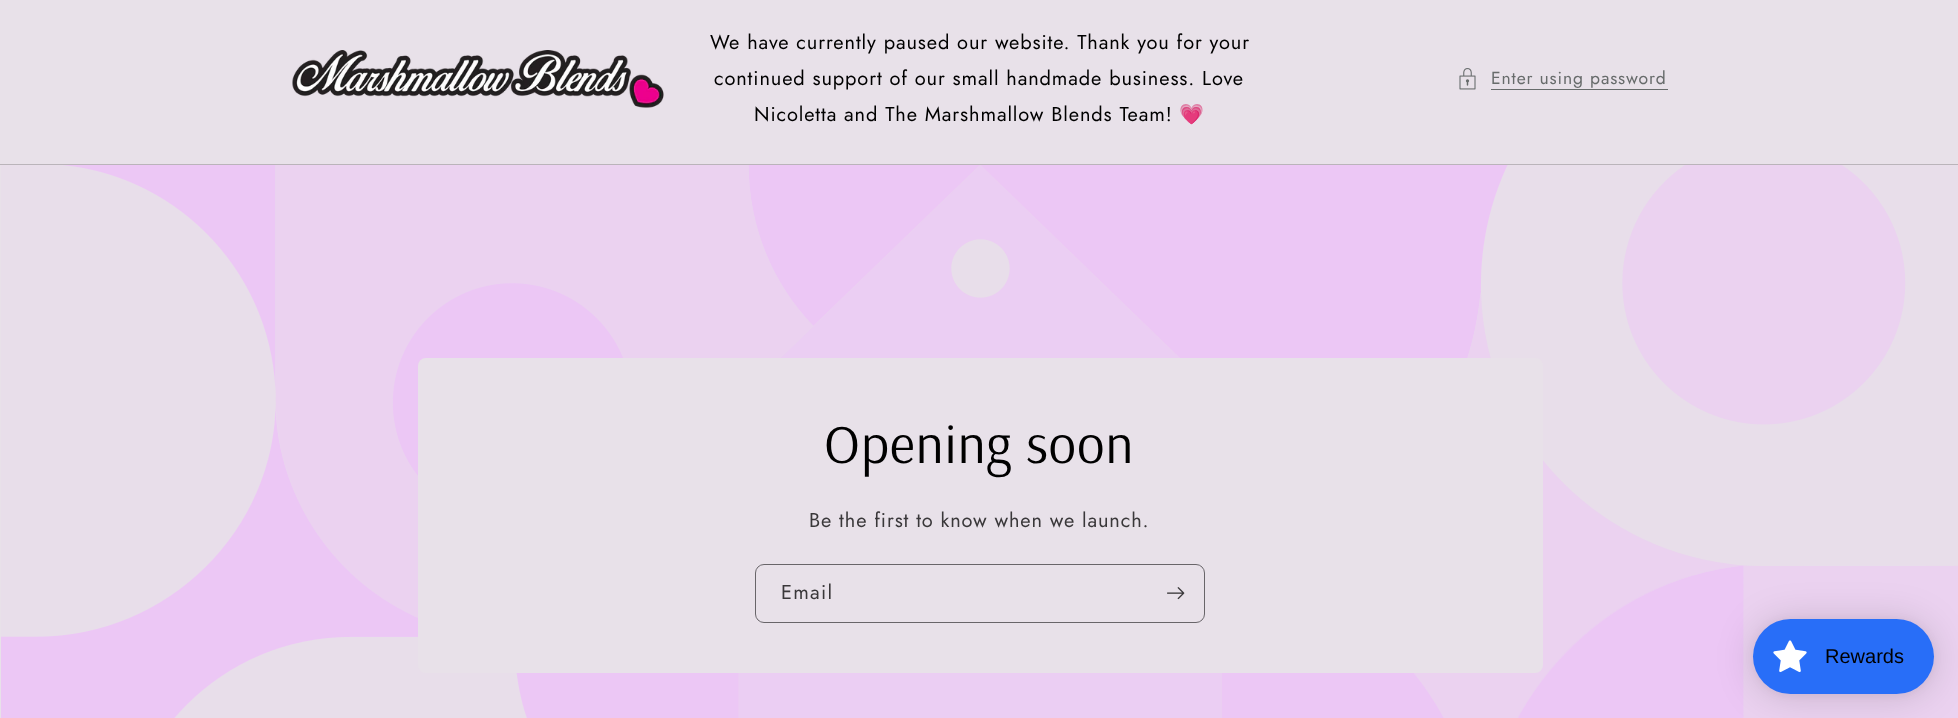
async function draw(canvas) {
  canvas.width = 1958;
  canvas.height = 718;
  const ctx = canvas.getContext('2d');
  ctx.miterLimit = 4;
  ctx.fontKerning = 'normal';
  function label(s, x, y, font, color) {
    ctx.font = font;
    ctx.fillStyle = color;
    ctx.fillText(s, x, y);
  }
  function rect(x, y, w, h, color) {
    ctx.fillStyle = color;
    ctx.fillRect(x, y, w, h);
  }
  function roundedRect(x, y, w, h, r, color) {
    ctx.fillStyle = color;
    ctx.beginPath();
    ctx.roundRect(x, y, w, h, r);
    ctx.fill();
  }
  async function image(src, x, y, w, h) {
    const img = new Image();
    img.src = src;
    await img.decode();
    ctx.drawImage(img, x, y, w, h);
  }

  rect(0, 0, 1958, 718, '#e8e1e9');
  await image('assets/img1.png', 292, 50, 372, 58);
  ctx.letterSpacing = '0.88px';
  label('We have currently paused our website. Thank you for your', 710, 49, '20px Jost', '#000');
  label('continued support of our small handmade business. Love', 714, 85, '20px Jost', '#000');
  label('Nicoletta and The Marshmallow Blends Team!', 754, 121, '20px Jost', '#000');
  label('💗', 1179, 121, '20px Noto Color Emoji', '#000');
  await image('assets/img2.png', 1459, 68, 17, 22);
  label('Enter using password', 1491, 84, '17.5px Jost', '#676b6b');
  rect(1491, 89, 177, 1, '#676b6b');
  rect(0, 164, 1958, 1, '#bab4ba');
  await image('assets/img3.png', 1, 165, 1957, 553);
  roundedRect(418, 358, 1125, 315, 8, '#e8e1e9');
  ctx.letterSpacing = '0.75px';
  label('Opening soon', 824, 463, '55px Arsenal', '#000');
  ctx.letterSpacing = '0.88px';
  label('Be the first to know when we launch.', 809, 527, '20px Jost', '#3a383a');
  ctx.beginPath();
  ctx.roundRect(755.5, 564.5, 449, 58, 8.5);
  ctx.strokeStyle = '#686569';
  ctx.stroke();
  ctx.letterSpacing = '1.25px';
  label('Email', 781, 599, '20px Jost', '#3a383a');
  await image('assets/img4.png', 1167, 587, 18, 13);
  ctx.fillStyle = '#00000026';
  ctx.filter = 'blur(19px)';
  ctx.beginPath();
  ctx.roundRect(1753, 621, 181, 75, 37.5);
  ctx.fill();
  ctx.filter = 'none';
  ctx.fillStyle = '#0000000d';
  ctx.filter = 'blur(4px)';
  ctx.beginPath();
  ctx.roundRect(1753, 620, 181, 75, 37.5);
  ctx.fill();
  ctx.filter = 'none';
  roundedRect(1753, 619, 181, 75, 37.5, '#286ef8');
  await image('assets/img5.png', 1773, 640, 34, 33);
  ctx.letterSpacing = '0px';
  label('Rewards', 1825, 663, '20px Liberation Sans', '#000');
}

draw(document.querySelector('canvas'));
